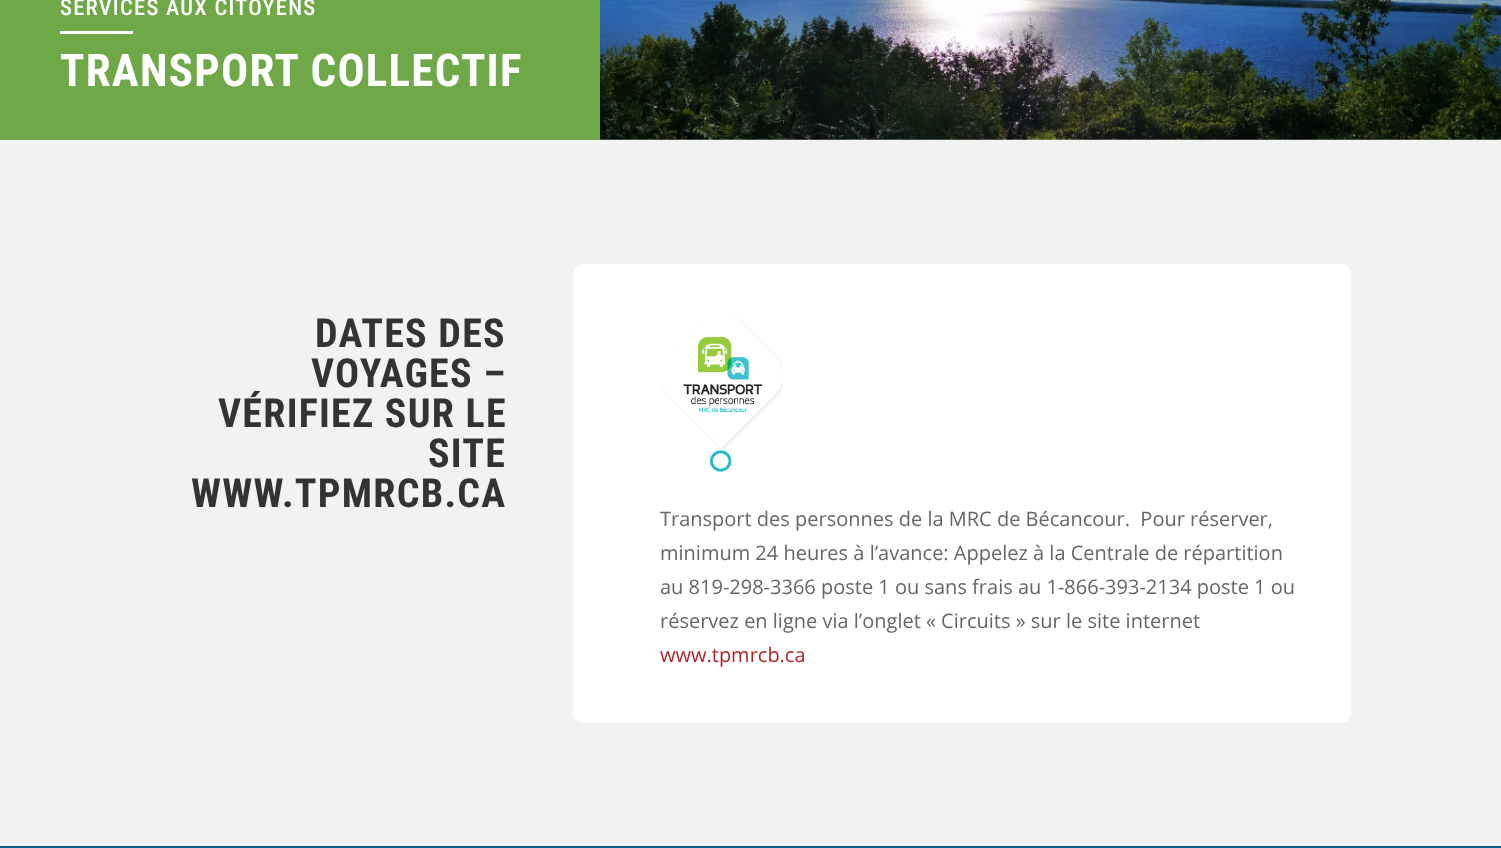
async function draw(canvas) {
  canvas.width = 1501;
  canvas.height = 848;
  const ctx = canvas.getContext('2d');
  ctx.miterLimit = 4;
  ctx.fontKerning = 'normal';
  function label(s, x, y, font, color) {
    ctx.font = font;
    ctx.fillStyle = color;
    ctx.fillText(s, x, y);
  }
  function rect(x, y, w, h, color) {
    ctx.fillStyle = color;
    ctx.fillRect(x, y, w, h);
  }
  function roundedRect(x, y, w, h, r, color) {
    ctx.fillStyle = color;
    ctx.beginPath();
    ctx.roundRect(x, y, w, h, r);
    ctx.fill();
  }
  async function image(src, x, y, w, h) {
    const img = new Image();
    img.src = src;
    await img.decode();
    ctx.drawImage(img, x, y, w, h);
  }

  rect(0, 0, 1501, 848, '#fff');
  rect(0, 0, 600, 140, '#6fa847');
  ctx.letterSpacing = '1.25px';
  label('SERVICES AUX CITOYENS', 60, 15, '500 22.5px Roboto Condensed', '#fff');
  rect(60, 31, 73, 3, '#fff');
  label('TRANSPORT COLLECTIF', 60, 86, 'bold 45px Roboto Condensed', '#fff');
  await image('assets/img1.png', 600, 0, 901, 140);
  rect(0, 140, 1501, 706, '#f3f2f2');
  label('DATES DES', 315, 347, 'bold 40px Roboto Condensed', '#333');
  label('VOYAGES –', 311, 387, 'bold 40px Roboto Condensed', '#333');
  label('VÉRIFIEZ SUR LE', 218, 427, 'bold 40px Roboto Condensed', '#333');
  label('SITE', 428, 467, 'bold 40px Roboto Condensed', '#333');
  label('WWW.TPMRCB.CA', 191, 507, 'bold 40px Roboto Condensed', '#333');
  roundedRect(573, 264, 778, 459, 10, '#fff');
  await image('assets/img2.png', 661, 317, 122, 155);
  ctx.letterSpacing = '0px';
  label('Transport des personnes de la MRC de Bécancour.  Pour réserver,', 660, 526, '20px Open Sans', '#666');
  label('minimum 24 heures à l’avance: Appelez à la Centrale de répartition', 660, 560, '20px Open Sans', '#666');
  label('au 819-298-3366 poste 1 ou sans frais au 1-866-393-2134 poste 1 ou', 660, 594, '20px Open Sans', '#666');
  label('réservez en ligne via l’onglet « Circuits » sur le site internet', 660, 628, '20px Open Sans', '#666');
  label('www.tpmrcb.ca', 660, 662, '20px Open Sans', '#b22329');
  rect(0, 846, 1501, 2, '#005f80');
}

draw(document.querySelector('canvas'));
